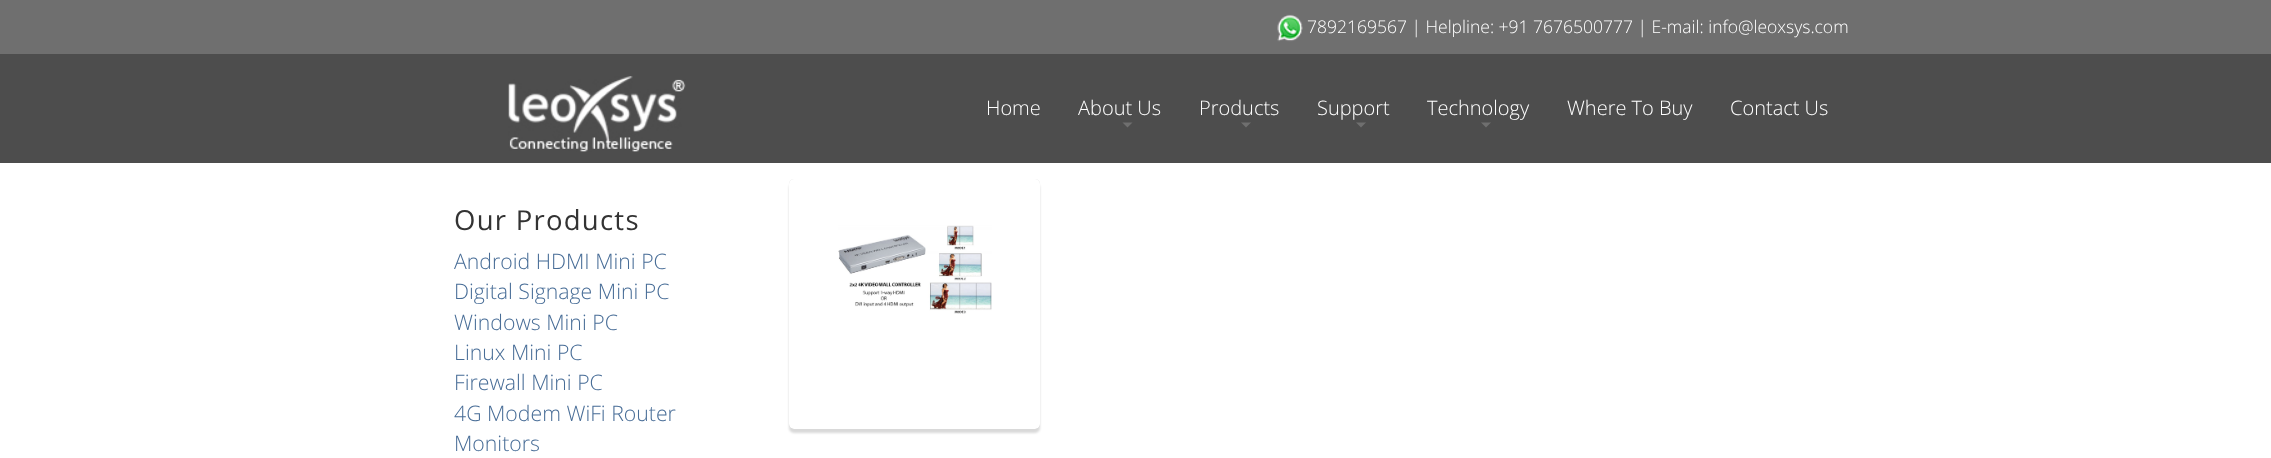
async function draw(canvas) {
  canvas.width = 2271;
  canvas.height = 458;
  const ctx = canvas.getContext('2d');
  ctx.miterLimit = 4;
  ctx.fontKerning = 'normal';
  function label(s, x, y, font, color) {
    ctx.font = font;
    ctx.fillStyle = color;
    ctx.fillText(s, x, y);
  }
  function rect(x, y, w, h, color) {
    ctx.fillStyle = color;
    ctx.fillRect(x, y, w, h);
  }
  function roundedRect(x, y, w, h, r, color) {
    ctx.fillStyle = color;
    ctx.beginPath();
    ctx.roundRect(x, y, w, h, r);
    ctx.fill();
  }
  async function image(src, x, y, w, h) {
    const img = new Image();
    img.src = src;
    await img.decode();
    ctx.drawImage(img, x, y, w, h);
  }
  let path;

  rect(0, 0, 2271, 458, '#fff');
  rect(0, 0, 2271, 54, '#6f6f6f');
  await image('assets/img1.png', 1277, 14, 26, 28);
  label('7892169567 | Helpline: +91 7676500777 | E-mail: info@leoxsys.com', 1307, 33, '300 17.5px Open Sans', '#fff');
  rect(0, 54, 2271, 109, '#4d4d4d');
  await image('assets/img2.png', 508, 76, 178, 76);
  label('Home', 986, 115, '300 20px Open Sans', '#fff');
  label('About Us', 1078, 115, '300 20px Open Sans', '#fff');
  ctx.fillStyle = '#6f6f6f';
  path = new Path2D('M1122.5 122.5H1132.5L1127.5 127.5Z');
  ctx.fill(path);
  label('Products', 1199, 115, '300 20px Open Sans', '#fff');
  ctx.fillStyle = '#6f6f6f';
  path = new Path2D('M1241 122.5H1251L1246 127.5Z');
  ctx.fill(path);
  label('Support', 1317, 115, '300 20px Open Sans', '#fff');
  ctx.fillStyle = '#6f6f6f';
  path = new Path2D('M1356 122.5H1366L1361 127.5Z');
  ctx.fill(path);
  label('Technology', 1427, 115, '300 20px Open Sans', '#fff');
  ctx.fillStyle = '#6f6f6f';
  path = new Path2D('M1481 122.5H1491L1486 127.5Z');
  ctx.fill(path);
  label('Where To Buy', 1567, 115, '300 20px Open Sans', '#fff');
  label('Contact Us', 1730, 115, '300 20px Open Sans', '#fff');
  ctx.letterSpacing = '1.25px';
  label('Our Products', 454, 230, '27.5px Open Sans', '#333');
  ctx.letterSpacing = '0px';
  label('Android HDMI Mini PC', 454, 269, '300 21.25px Open Sans', '#486d97');
  label('Digital Signage Mini PC', 454, 299, '300 21.25px Open Sans', '#486d97');
  label('Windows Mini PC', 454, 330, '300 21.25px Open Sans', '#486d97');
  label('Linux Mini PC', 454, 360, '300 21.25px Open Sans', '#486d97');
  label('Firewall Mini PC', 454, 390, '300 21.25px Open Sans', '#486d97');
  label('4G Modem WiFi Router', 454, 421, '300 21.25px Open Sans', '#486d97');
  label('Monitors', 454, 451, '300 21.25px Open Sans', '#486d97');
  ctx.fillStyle = '#00000026';
  ctx.filter = 'blur(0.5px)';
  ctx.beginPath();
  ctx.roundRect(789, 179, 251, 250, 5);
  ctx.fill();
  ctx.filter = 'none';
  ctx.filter = 'blur(1px)';
  ctx.beginPath();
  ctx.roundRect(789, 183, 251, 250, 5);
  ctx.fill();
  ctx.filter = 'none';
  roundedRect(789, 179, 251, 250, 5, '#fff');
  await image('assets/img3.png', 838, 225, 154, 89);
}

draw(document.querySelector('canvas'));
